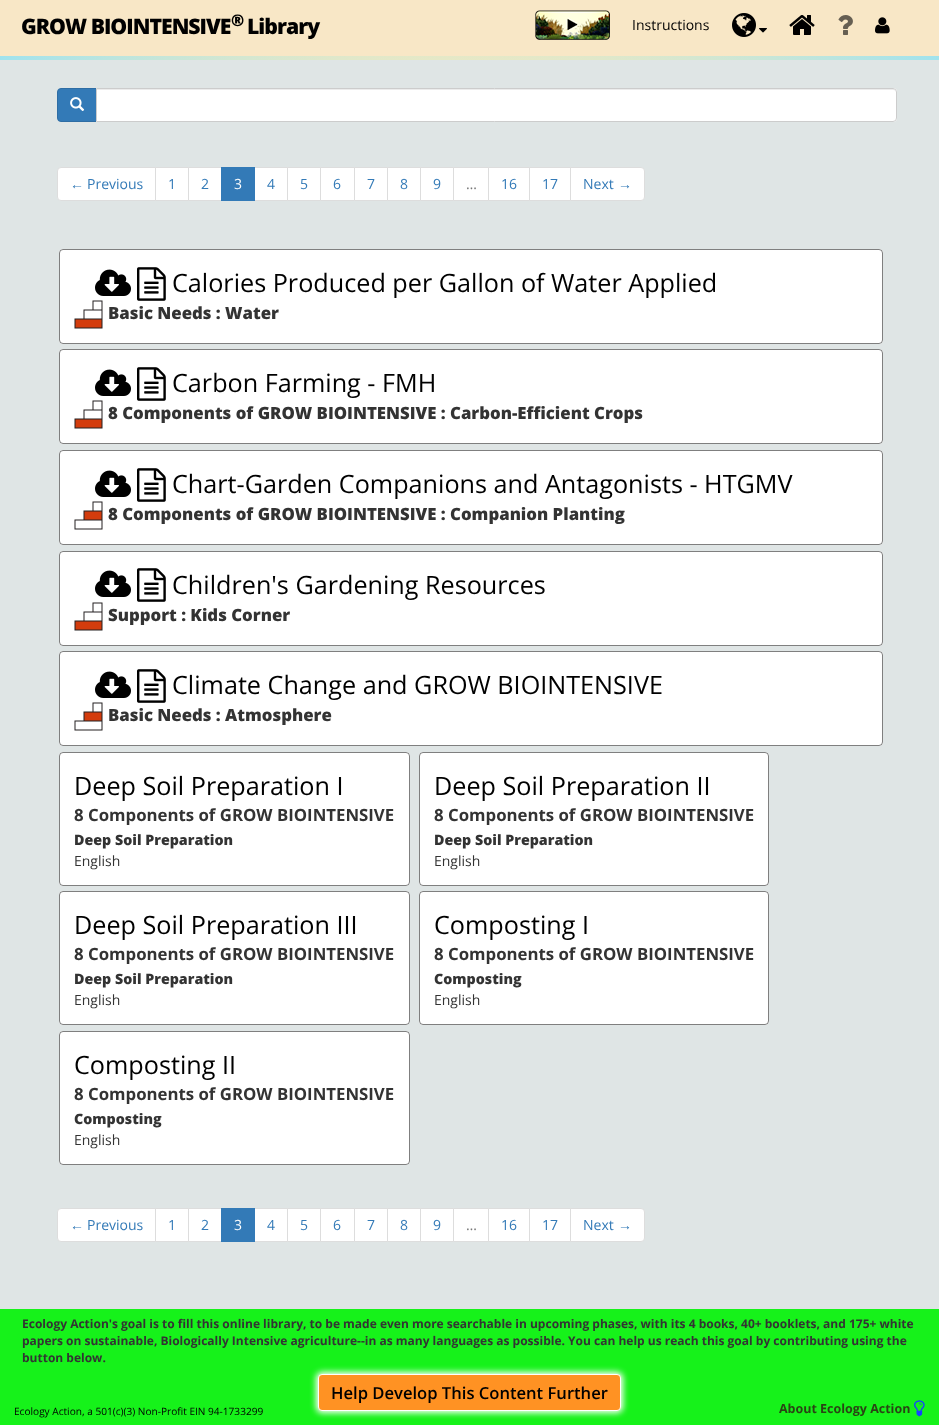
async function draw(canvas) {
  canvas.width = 939;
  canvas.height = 1425;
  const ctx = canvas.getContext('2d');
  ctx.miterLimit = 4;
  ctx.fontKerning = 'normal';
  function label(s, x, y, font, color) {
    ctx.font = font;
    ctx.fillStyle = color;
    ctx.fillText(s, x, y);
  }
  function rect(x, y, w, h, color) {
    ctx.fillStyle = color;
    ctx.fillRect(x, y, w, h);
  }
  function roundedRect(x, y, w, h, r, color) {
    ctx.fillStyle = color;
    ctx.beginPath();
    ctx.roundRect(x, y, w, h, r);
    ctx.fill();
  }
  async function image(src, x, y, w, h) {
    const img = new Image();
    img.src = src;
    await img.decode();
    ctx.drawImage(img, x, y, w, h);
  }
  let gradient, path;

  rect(0, 0, 939, 1425, '#fff');
  gradient = ctx.createRadialGradient(470, 713, 0, 470, 713, 853);
  gradient.addColorStop(0, '#ffffe7');
  gradient.addColorStop(0.25, '#ffffde');
  gradient.addColorStop(0.5, '#f7f5a9');
  gradient.addColorStop(0.75, '#ece9c3');
  gradient.addColorStop(1, '#8ae1fa');
  ctx.fillStyle = gradient;
  ctx.fillRect(0, 56, 939, 4);
  rect(0, 0, 939, 56, '#f8e7c6');
  ctx.letterSpacing = '-1px';
  label('GROW BIOINTENSIVE', 21, 34, '800 21.25px Open Sans', '#000');
  label('®', 231, 26, '800 16px Open Sans', '#000');
  label('Library', 247, 34, '800 21.25px Open Sans', '#000');
  await image('assets/img1.png', 535, 10, 75, 30);
  ctx.letterSpacing = '0px';
  label('Instructions', 632, 30, '14px Open Sans', '#000');
  await image('assets/img2.png', 732, 13, 24, 24);
  await image('assets/img3.png', 759, 28, 8, 5);
  await image('assets/img4.png', 789, 15, 26, 20);
  await image('assets/img5.png', 838, 15, 15, 20);
  await image('assets/img6.png', 875, 17, 15, 17);
  rect(0, 60, 939, 1249, '#dfe5e5');
  ctx.fillStyle = '#337ab7';
  ctx.beginPath();
  ctx.roundRect(57.5, 88.5, 39, 33, [3.5, 0, 0, 3.5]);
  ctx.fill();
  ctx.strokeStyle = '#2e6da4';
  ctx.stroke();
  await image('assets/img7.png', 70, 97, 15, 14);
  ctx.fillStyle = '#fff';
  ctx.beginPath();
  ctx.roundRect(96, 88, 801, 34, [0, 4, 4, 0]);
  ctx.fill();
  ctx.fillStyle = '#ececec';
  path = new Path2D('M97 90H893C895 90 896 91 896 93C896 91 895 89 893 89H97Z');
  ctx.fill(path);
  ctx.beginPath();
  ctx.roundRect(96.5, 88.5, 800, 33, [0, 3.5, 3.5, 0]);
  ctx.strokeStyle = '#ccc';
  ctx.stroke();
  ctx.fillStyle = '#fff';
  ctx.beginPath();
  ctx.roundRect(57.5, 167.5, 98, 33, [3.5, 0, 0, 3.5]);
  ctx.fill();
  ctx.strokeStyle = '#ddd';
  ctx.stroke();
  label('←', 70, 189, '14px Liberation Sans', '#337ab7');
  label('Previous', 87, 189, '14px Open Sans', '#337ab7');
  ctx.fillStyle = '#fff';
  ctx.beginPath();
  ctx.rect(155.5, 167.5, 33, 33);
  ctx.fill();
  ctx.stroke();
  label('1', 168, 189, '14px Open Sans', '#337ab7');
  ctx.fillStyle = '#fff';
  ctx.beginPath();
  ctx.rect(188.5, 167.5, 33, 33);
  ctx.fill();
  ctx.stroke();
  label('2', 201, 189, '14px Open Sans', '#337ab7');
  ctx.fillStyle = '#fff';
  ctx.beginPath();
  ctx.rect(254.5, 167.5, 33, 33);
  ctx.fill();
  ctx.stroke();
  rect(221, 167, 34, 34, '#337ab7');
  label('3', 234, 189, '14px Open Sans', '#fff');
  label('4', 267, 189, '14px Open Sans', '#337ab7');
  ctx.fillStyle = '#fff';
  ctx.beginPath();
  ctx.rect(287.5, 167.5, 33, 33);
  ctx.fill();
  ctx.stroke();
  label('5', 300, 189, '14px Open Sans', '#337ab7');
  ctx.fillStyle = '#fff';
  ctx.beginPath();
  ctx.rect(320.5, 167.5, 34, 33);
  ctx.fill();
  ctx.stroke();
  label('6', 333, 189, '14px Open Sans', '#337ab7');
  ctx.fillStyle = '#fff';
  ctx.beginPath();
  ctx.rect(354.5, 167.5, 33, 33);
  ctx.fill();
  ctx.stroke();
  label('7', 367, 189, '14px Open Sans', '#337ab7');
  ctx.fillStyle = '#fff';
  ctx.beginPath();
  ctx.rect(387.5, 167.5, 33, 33);
  ctx.fill();
  ctx.stroke();
  label('8', 400, 189, '14px Open Sans', '#337ab7');
  ctx.fillStyle = '#fff';
  ctx.beginPath();
  ctx.rect(420.5, 167.5, 33, 33);
  ctx.fill();
  ctx.stroke();
  label('9', 433, 189, '14px Open Sans', '#337ab7');
  ctx.fillStyle = '#fff';
  ctx.beginPath();
  ctx.rect(453.5, 167.5, 35, 33);
  ctx.fill();
  ctx.stroke();
  label('…', 466, 189, '14px Open Sans', '#777');
  ctx.fillStyle = '#fff';
  ctx.beginPath();
  ctx.rect(488.5, 167.5, 41, 33);
  ctx.fill();
  ctx.stroke();
  label('16', 501, 189, '14px Open Sans', '#337ab7');
  ctx.fillStyle = '#fff';
  ctx.beginPath();
  ctx.rect(529.5, 167.5, 41, 33);
  ctx.fill();
  ctx.stroke();
  label('17', 542, 189, '14px Open Sans', '#337ab7');
  ctx.fillStyle = '#fff';
  ctx.beginPath();
  ctx.roundRect(570.5, 167.5, 74, 33, [0, 3.5, 3.5, 0]);
  ctx.fill();
  ctx.stroke();
  label('Next', 583, 189, '14px Open Sans', '#337ab7');
  label('→', 618, 189, '14px Liberation Sans', '#337ab7');
  roundedRect(59, 249, 824, 95, 4, '#fff');
  ctx.beginPath();
  ctx.roundRect(59.5, 249.5, 823, 94, 3.5);
  ctx.strokeStyle = '#00000080';
  ctx.stroke();
  await image('assets/img8.png', 95, 269, 36, 27);
  await image('assets/img9.png', 137, 267, 29, 34);
  label('Calories Produced per Gallon of Water Applied', 172, 292, '25.2px Open Sans', '#000');
  await image('assets/img10.png', 74, 300, 29, 29);
  label('Basic Needs : Water', 108, 319, '800 16.8px Open Sans', '#333');
  roundedRect(59, 349, 824, 95, 4, '#fff');
  ctx.beginPath();
  ctx.roundRect(59.5, 349.5, 823, 94, 3.5);
  ctx.stroke();
  await image('assets/img8.png', 95, 369, 36, 27);
  await image('assets/img9.png', 137, 367, 29, 34);
  label('Carbon Farming - FMH', 172, 392, '25.2px Open Sans', '#000');
  await image('assets/img10.png', 74, 400, 29, 29);
  label('8 Components of GROW BIOINTENSIVE : Carbon-Efficient Crops', 108, 419, '800 16.8px Open Sans', '#333');
  roundedRect(59, 450, 824, 95, 4, '#fff');
  ctx.beginPath();
  ctx.roundRect(59.5, 450.5, 823, 94, 3.5);
  ctx.stroke();
  await image('assets/img8.png', 95, 470, 36, 27);
  await image('assets/img9.png', 137, 468, 29, 34);
  label('Chart-Garden Companions and Antagonists - HTGMV', 172, 493, '25.2px Open Sans', '#000');
  await image('assets/img11.png', 74, 501, 29, 29);
  label('8 Components of GROW BIOINTENSIVE : Companion Planting', 108, 520, '800 16.8px Open Sans', '#333');
  roundedRect(59, 551, 824, 95, 4, '#fff');
  ctx.beginPath();
  ctx.roundRect(59.5, 551.5, 823, 94, 3.5);
  ctx.stroke();
  await image('assets/img8.png', 95, 570, 36, 27);
  await image('assets/img9.png', 137, 568, 29, 34);
  label('Children\'s Gardening Resources', 172, 594, '25.2px Open Sans', '#000');
  await image('assets/img10.png', 74, 602, 29, 29);
  label('Support : Kids Corner', 108, 621, '800 16.8px Open Sans', '#333');
  roundedRect(59, 651, 824, 95, 4, '#fff');
  ctx.beginPath();
  ctx.roundRect(59.5, 651.5, 823, 94, 3.5);
  ctx.stroke();
  await image('assets/img8.png', 95, 671, 36, 27);
  await image('assets/img9.png', 137, 669, 29, 34);
  label('Climate Change and GROW BIOINTENSIVE', 172, 694, '25.2px Open Sans', '#000');
  await image('assets/img11.png', 74, 702, 29, 29);
  label('Basic Needs : Atmosphere', 108, 721, '800 16.8px Open Sans', '#333');
  roundedRect(59, 752, 351, 134, 4, '#fff');
  ctx.beginPath();
  ctx.roundRect(59.5, 752.5, 350, 133, 3.5);
  ctx.stroke();
  label('Deep Soil Preparation I', 74, 795, '25.2px Open Sans', '#000');
  label('8 Components of GROW BIOINTENSIVE', 74, 821, 'bold 16.8px Open Sans', '#333');
  label('Deep Soil Preparation', 74, 845, '800 14.25px Open Sans', '#333');
  label('English', 74, 866, '14px Open Sans', '#333');
  roundedRect(419, 752, 350, 134, 4, '#fff');
  ctx.beginPath();
  ctx.roundRect(419.5, 752.5, 349, 133, 3.5);
  ctx.stroke();
  label('Deep Soil Preparation II', 434, 795, '25.2px Open Sans', '#000');
  label('8 Components of GROW BIOINTENSIVE', 434, 821, 'bold 16.8px Open Sans', '#333');
  label('Deep Soil Preparation', 434, 845, '800 14.25px Open Sans', '#333');
  label('English', 434, 866, '14px Open Sans', '#333');
  roundedRect(59, 891, 351, 134, 4, '#fff');
  ctx.beginPath();
  ctx.roundRect(59.5, 891.5, 350, 133, 3.5);
  ctx.stroke();
  label('Deep Soil Preparation III', 74, 934, '25.2px Open Sans', '#000');
  label('8 Components of GROW BIOINTENSIVE', 74, 960, 'bold 16.8px Open Sans', '#333');
  label('Deep Soil Preparation', 74, 984, '800 14.25px Open Sans', '#333');
  label('English', 74, 1005, '14px Open Sans', '#333');
  roundedRect(419, 891, 350, 134, 4, '#fff');
  ctx.beginPath();
  ctx.roundRect(419.5, 891.5, 349, 133, 3.5);
  ctx.stroke();
  label('Composting I', 434, 934, '25.2px Open Sans', '#000');
  label('8 Components of GROW BIOINTENSIVE', 434, 960, 'bold 16.8px Open Sans', '#333');
  label('Composting', 434, 984, '800 14.25px Open Sans', '#333');
  label('English', 434, 1005, '14px Open Sans', '#333');
  roundedRect(59, 1031, 351, 134, 4, '#fff');
  ctx.beginPath();
  ctx.roundRect(59.5, 1031.5, 350, 133, 3.5);
  ctx.stroke();
  label('Composting II', 74, 1074, '25.2px Open Sans', '#000');
  label('8 Components of GROW BIOINTENSIVE', 74, 1100, 'bold 16.8px Open Sans', '#333');
  label('Composting', 74, 1124, '800 14.25px Open Sans', '#333');
  label('English', 74, 1145, '14px Open Sans', '#333');
  ctx.fillStyle = '#fff';
  ctx.beginPath();
  ctx.roundRect(57.5, 1208.5, 98, 33, [3.5, 0, 0, 3.5]);
  ctx.fill();
  ctx.strokeStyle = '#ddd';
  ctx.stroke();
  label('←', 70, 1230, '14px Liberation Sans', '#337ab7');
  label('Previous', 87, 1230, '14px Open Sans', '#337ab7');
  ctx.fillStyle = '#fff';
  ctx.beginPath();
  ctx.rect(155.5, 1208.5, 33, 33);
  ctx.fill();
  ctx.stroke();
  label('1', 168, 1230, '14px Open Sans', '#337ab7');
  ctx.fillStyle = '#fff';
  ctx.beginPath();
  ctx.rect(188.5, 1208.5, 33, 33);
  ctx.fill();
  ctx.stroke();
  label('2', 201, 1230, '14px Open Sans', '#337ab7');
  ctx.fillStyle = '#fff';
  ctx.beginPath();
  ctx.rect(254.5, 1208.5, 33, 33);
  ctx.fill();
  ctx.stroke();
  rect(221, 1208, 34, 34, '#337ab7');
  label('3', 234, 1230, '14px Open Sans', '#fff');
  label('4', 267, 1230, '14px Open Sans', '#337ab7');
  ctx.fillStyle = '#fff';
  ctx.beginPath();
  ctx.rect(287.5, 1208.5, 33, 33);
  ctx.fill();
  ctx.stroke();
  label('5', 300, 1230, '14px Open Sans', '#337ab7');
  ctx.fillStyle = '#fff';
  ctx.beginPath();
  ctx.rect(320.5, 1208.5, 34, 33);
  ctx.fill();
  ctx.stroke();
  label('6', 333, 1230, '14px Open Sans', '#337ab7');
  ctx.fillStyle = '#fff';
  ctx.beginPath();
  ctx.rect(354.5, 1208.5, 33, 33);
  ctx.fill();
  ctx.stroke();
  label('7', 367, 1230, '14px Open Sans', '#337ab7');
  ctx.fillStyle = '#fff';
  ctx.beginPath();
  ctx.rect(387.5, 1208.5, 33, 33);
  ctx.fill();
  ctx.stroke();
  label('8', 400, 1230, '14px Open Sans', '#337ab7');
  ctx.fillStyle = '#fff';
  ctx.beginPath();
  ctx.rect(420.5, 1208.5, 33, 33);
  ctx.fill();
  ctx.stroke();
  label('9', 433, 1230, '14px Open Sans', '#337ab7');
  ctx.fillStyle = '#fff';
  ctx.beginPath();
  ctx.rect(453.5, 1208.5, 35, 33);
  ctx.fill();
  ctx.stroke();
  label('…', 466, 1230, '14px Open Sans', '#777');
  ctx.fillStyle = '#fff';
  ctx.beginPath();
  ctx.rect(488.5, 1208.5, 41, 33);
  ctx.fill();
  ctx.stroke();
  label('16', 501, 1230, '14px Open Sans', '#337ab7');
  ctx.fillStyle = '#fff';
  ctx.beginPath();
  ctx.rect(529.5, 1208.5, 41, 33);
  ctx.fill();
  ctx.stroke();
  label('17', 542, 1230, '14px Open Sans', '#337ab7');
  ctx.fillStyle = '#fff';
  ctx.beginPath();
  ctx.roundRect(570.5, 1208.5, 74, 33, [0, 3.5, 3.5, 0]);
  ctx.fill();
  ctx.stroke();
  label('Next', 583, 1230, '14px Open Sans', '#337ab7');
  label('→', 618, 1230, '14px Liberation Sans', '#337ab7');
  rect(0, 1309, 939, 116, '#16f21a');
  label('Ecology Action\'s goal is to fill this online library, to be made even more searchable in upcoming phases, with its 4 books, 40+ booklets, and 175+ white', 22, 1328, 'bold 12px Open Sans', '#333');
  label('papers on sustainable, Biologically Intensive agriculture--in as many languages as possible. You can help us reach this goal by contributing using the', 22, 1345, 'bold 12px Open Sans', '#333');
  label('button below.', 22, 1362, 'bold 12px Open Sans', '#333');
  ctx.fillStyle = '#fff';
  ctx.filter = 'blur(3px)';
  ctx.beginPath();
  ctx.roundRect(316, 1372, 307, 41, 6);
  ctx.fill();
  ctx.filter = 'none';
  ctx.fillStyle = '#ff9223';
  ctx.beginPath();
  ctx.roundRect(318.5, 1374.5, 302, 36, 3.5);
  ctx.fill();
  ctx.strokeStyle = '#fff';
  ctx.stroke();
  label('Help Develop This Content Further', 331, 1399, '600 16.6px Open Sans', '#000');
  label('Ecology Action, a 501(c)(3) Non-Profit EIN 94-1733299', 14, 1415, '10.1px Open Sans', '#000');
  label('About', 779, 1413, 'bold 12.5px Open Sans', '#2a4414');
  label('Ecology Action', 820, 1413, 'bold 12.5px Open Sans', '#2a4414');
  await image('assets/img12.png', 914, 1400, 11, 17);
}

draw(document.querySelector('canvas'));
